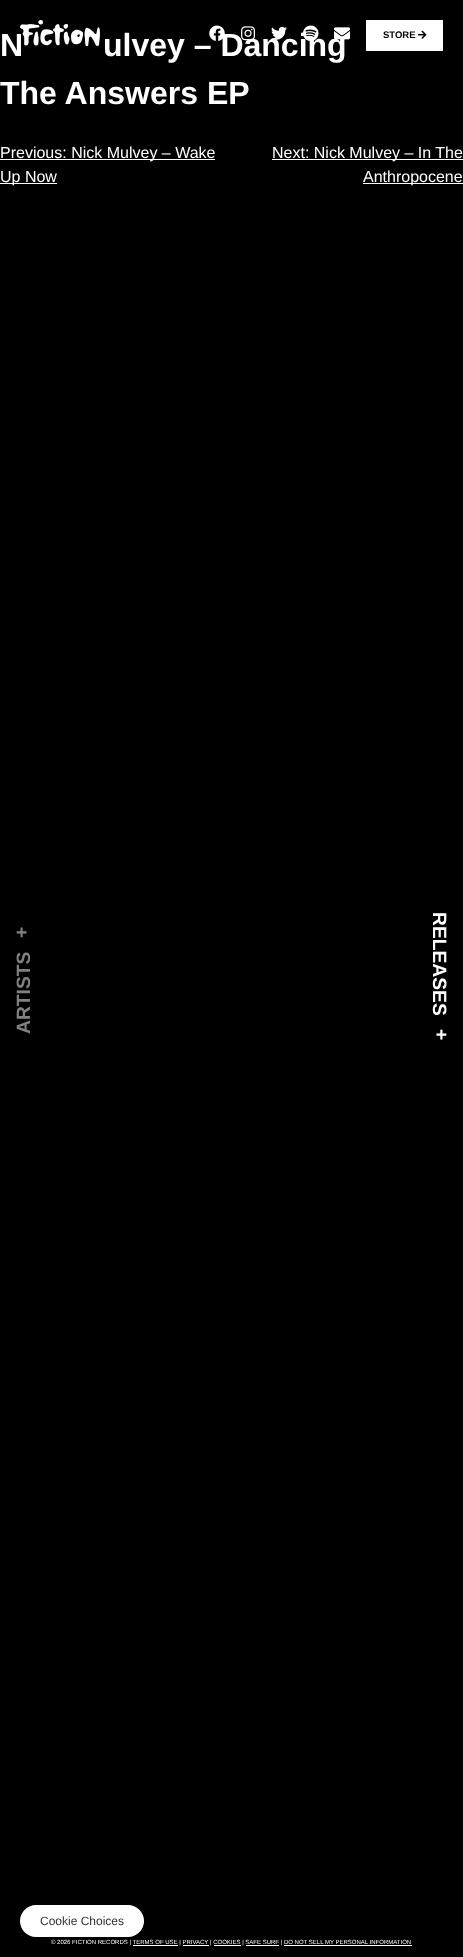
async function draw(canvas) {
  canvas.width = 463;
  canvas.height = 1957;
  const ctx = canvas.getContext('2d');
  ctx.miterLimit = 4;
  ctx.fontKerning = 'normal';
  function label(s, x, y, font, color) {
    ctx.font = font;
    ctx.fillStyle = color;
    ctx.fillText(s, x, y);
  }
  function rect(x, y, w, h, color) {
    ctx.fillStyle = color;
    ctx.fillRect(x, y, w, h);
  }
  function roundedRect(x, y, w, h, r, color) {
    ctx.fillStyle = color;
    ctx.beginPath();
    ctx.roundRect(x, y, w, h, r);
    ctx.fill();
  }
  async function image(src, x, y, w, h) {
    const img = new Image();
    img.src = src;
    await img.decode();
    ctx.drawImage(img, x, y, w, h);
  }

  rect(0, 0, 463, 1957, '#000');
  label('N', 0, 56, 'bold 32px Liberation Sans', '#fff');
  await image('assets/img1.png', 20, 20, 80, 26);
  label('ulvey – Dancing', 103, 56, 'bold 32px Liberation Sans', '#fff');
  await image('assets/img2.png', 209, 25, 16, 16);
  await image('assets/img3.png', 241, 26, 15, 15);
  await image('assets/img4.png', 271, 26, 16, 14);
  await image('assets/img5.png', 303, 25, 16, 16);
  await image('assets/img6.png', 334, 27, 16, 13);
  rect(366, 20, 77, 31, '#fff');
  label('STORE', 383, 38, 'bold 9.5px Liberation Sans', '#000');
  await image('assets/img7.png', 418, 30, 9, 9);
  ctx.font = 'bold 19.25px Liberation Sans';
  ctx.fillStyle = '#808080';
  ctx.save();
  ctx.translate(28, 938);
  ctx.rotate(-90 * Math.PI / 180);
  ctx.fillText('+', 0, 0);
  ctx.restore();
  ctx.save();
  ctx.translate(30, 1034);
  ctx.rotate(-90 * Math.PI / 180);
  ctx.fillText('ARTISTS', 0, 0);
  ctx.restore();
  ctx.fillStyle = '#fff';
  ctx.save();
  ctx.translate(433, 912);
  ctx.rotate(90 * Math.PI / 180);
  ctx.fillText('RELEASES', 0, 0);
  ctx.restore();
  ctx.save();
  ctx.translate(435, 1029);
  ctx.rotate(90 * Math.PI / 180);
  ctx.fillText('+', 0, 0);
  ctx.restore();
  label('The Answers EP', 0, 104, 'bold 32px Liberation Sans', '#fff');
  rect(0, 159, 215, 1, '#fff');
  label('Previous: Nick Mulvey – Wake', 0, 158, '16px Liberation Sans', '#fff');
  rect(0, 183, 57, 1, '#fff');
  label('Up Now', 0, 182, '16px Liberation Sans', '#fff');
  rect(272, 159, 191, 1, '#fff');
  label('Next: Nick Mulvey – In The', 272, 158, '16px Liberation Sans', '#fff');
  rect(363, 183, 100, 1, '#fff');
  label('Anthropocene', 363, 182, '16px Liberation Sans', '#fff');
  label('© 2026 FICTION RECORDS | TERMS OF USE | PRIVACY | COOKIES | SAFE SURF | DO NOT SELL MY PERSONAL INFORMATION', 51, 1944, '6px Liberation Sans', '#fff');
  rect(133, 1945, 45, 1, '#fff');
  rect(183, 1945, 26, 1, '#fff');
  rect(214, 1945, 27, 1, '#fff');
  rect(246, 1945, 33, 1, '#fff');
  rect(284, 1945, 128, 1, '#fff');
  roundedRect(20, 1905, 124, 32, 16, '#fff');
  label('Cookie Choices', 40, 1925, '12px Liberation Sans', '#333');
}

draw(document.querySelector('canvas'));
